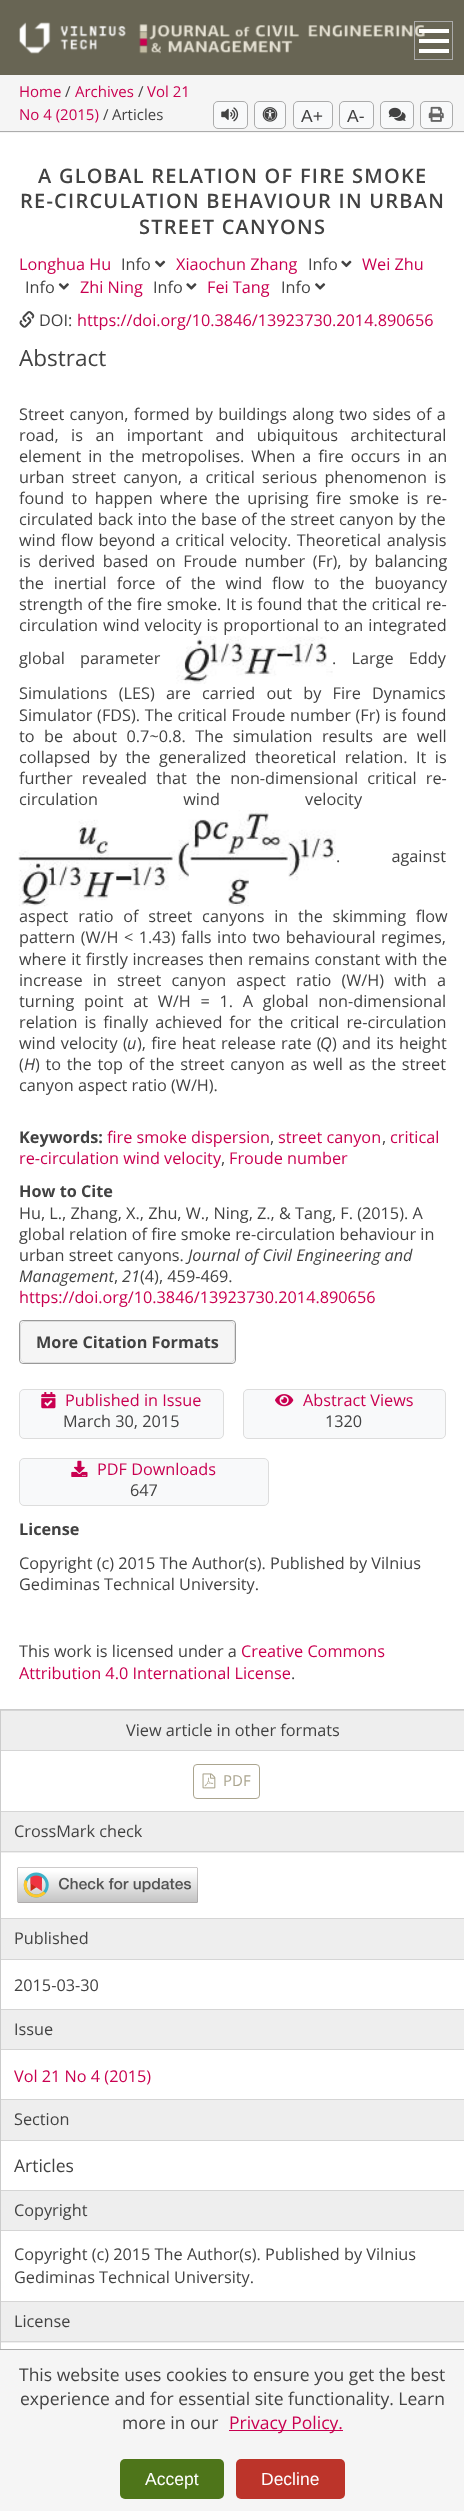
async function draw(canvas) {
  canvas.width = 464;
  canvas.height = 2511;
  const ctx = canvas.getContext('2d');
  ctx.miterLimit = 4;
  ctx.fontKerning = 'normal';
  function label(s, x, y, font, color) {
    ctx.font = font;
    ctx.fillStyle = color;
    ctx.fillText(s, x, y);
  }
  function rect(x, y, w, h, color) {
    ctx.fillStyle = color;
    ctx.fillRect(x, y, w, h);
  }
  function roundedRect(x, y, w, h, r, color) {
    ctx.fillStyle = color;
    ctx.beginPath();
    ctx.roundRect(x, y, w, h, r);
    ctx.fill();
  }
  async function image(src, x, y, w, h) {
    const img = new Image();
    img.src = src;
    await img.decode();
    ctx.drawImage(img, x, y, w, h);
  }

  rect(0, 0, 464, 2511, '#fff');
  rect(0, 0, 464, 75, '#686554');
  await image('assets/img1.png', 19, 22, 107, 32);
  await image('assets/img2.png', 139, 24, 286, 30);
  ctx.strokeStyle = '#ababab';
  ctx.strokeRect(414.5, 21.5, 38, 38);
  rect(419, 49, 30, 4, '#fff');
  rect(419, 29, 30, 4, '#fff');
  rect(419, 39, 30, 4, '#fff');
  rect(0, 75, 464, 58, '#f5f5f5');
  rect(0, 131, 464, 1, '#acacac');
  label('Home', 19, 97, '15px Open Sans', '#c90050');
  label('/', 65, 97, '15px Open Sans', '#424242');
  label('Archives', 75, 97, '15px Open Sans', '#c90050');
  label('/', 138, 97, '15px Open Sans', '#424242');
  label('Vol 21', 147, 97, '15px Open Sans', '#c90050');
  label('No 4 (2015)', 19, 120, '15px Open Sans', '#c90050');
  label('/', 103, 120, '15px Open Sans', '#424242');
  label('Articles', 112, 120, '15px Open Sans', '#424242');
  ctx.fillStyle = '#f8f9fa';
  ctx.beginPath();
  ctx.roundRect(213.5, 101.5, 34, 27, 4.5);
  ctx.fill();
  ctx.strokeStyle = '#acacac';
  ctx.stroke();
  await image('assets/img3.png', 221, 107, 18, 15);
  ctx.beginPath();
  ctx.roundRect(254.5, 101.5, 31, 27, 4.5);
  ctx.fill();
  ctx.stroke();
  await image('assets/img4.png', 262, 107, 16, 15);
  ctx.beginPath();
  ctx.roundRect(293.5, 101.5, 39, 27, 4.5);
  ctx.fill();
  ctx.stroke();
  label('A+', 301, 122, '17.5px Liberation Sans', '#424242');
  ctx.fillStyle = '#f8f9fa';
  ctx.beginPath();
  ctx.roundRect(339.5, 101.5, 34, 27, 4.5);
  ctx.fill();
  ctx.stroke();
  label('A-', 347, 122, '17.5px Liberation Sans', '#424242');
  ctx.fillStyle = '#f8f9fa';
  ctx.beginPath();
  ctx.roundRect(380.5, 101.5, 33, 27, 4.5);
  ctx.fill();
  ctx.stroke();
  await image('assets/img5.png', 388, 107, 18, 14);
  ctx.beginPath();
  ctx.roundRect(420.5, 101.5, 32, 27, 4.5);
  ctx.fill();
  ctx.stroke();
  await image('assets/img6.png', 428, 106, 16, 16);
  ctx.letterSpacing = '1.25px';
  label('A GLOBAL RELATION OF FIRE SMOKE', 38, 183, '600 20px Open Sans', '#424242');
  label('RE-CIRCULATION BEHAVIOUR IN URBAN', 20, 208, '600 20px Open Sans', '#424242');
  label('STREET CANYONS', 139, 234, '600 20px Open Sans', '#424242');
  ctx.letterSpacing = '0px';
  label('Longhua Hu', 19, 270, '16.25px Open Sans', '#c90050');
  label('Info', 121, 270, '16.25px Open Sans', '#424242');
  await image('assets/img7.png', 155, 260, 11, 8);
  label('Wei Zhu', 362, 270, '16.25px Open Sans', '#c90050');
  label('Info', 25, 293, '16.25px Open Sans', '#424242');
  await image('assets/img8.png', 58, 283, 11, 7);
  label('Xiaochun Zhang', 176, 270, '16.25px Open Sans', '#c90050');
  label('Info', 308, 270, '16.25px Open Sans', '#424242');
  await image('assets/img9.png', 341, 260, 11, 8);
  label('Zhi Ning', 80, 293, '16.25px Open Sans', '#c90050');
  label('Info', 153, 293, '16.25px Open Sans', '#424242');
  await image('assets/img10.png', 186, 283, 11, 7);
  label('Fei Tang', 207, 293, '16.25px Open Sans', '#c90050');
  label('Info', 281, 293, '16.25px Open Sans', '#424242');
  await image('assets/img11.png', 315, 283, 11, 7);
  await image('assets/img12.png', 19, 311, 16, 17);
  label('DOI:', 39, 326, '16.25px Open Sans', '#424242');
  label('https://doi.org/10.3846/13923730.2014.890656', 77, 326, '16.25px Open Sans', '#c90050');
  label('Abstract', 19, 366, '22.5px Open Sans', '#424242');
  ctx.wordSpacing = '1px';
  label('Street canyon, formed by buildings along two sides of a', 19, 420, '16.25px Open Sans', '#424242');
  ctx.wordSpacing = '8.25px';
  label('road, is an important and ubiquitous architectural', 19, 441, '16.25px Open Sans', '#424242');
  ctx.wordSpacing = '2.75px';
  label('element in the metropolises. When a fire occurs in an', 19, 462, '16.25px Open Sans', '#424242');
  ctx.wordSpacing = '3px';
  label('urban street canyon, a critical serious phenomenon is', 19, 483, '16.25px Open Sans', '#424242');
  ctx.wordSpacing = '3.25px';
  label('found to happen where the uprising fire smoke is re-', 19, 504, '16.25px Open Sans', '#424242');
  ctx.wordSpacing = '0.25px';
  label('circulated back into the base of the street canyon by the', 19, 525, '16.25px Open Sans', '#424242');
  ctx.wordSpacing = '1.25px';
  label('wind flow beyond a critical velocity. Theoretical analysis', 19, 546, '16.25px Open Sans', '#424242');
  ctx.wordSpacing = '3.25px';
  label('is derived based on Froude number (Fr), by balancing', 19, 567, '16.25px Open Sans', '#424242');
  ctx.wordSpacing = '5.75px';
  label('the inertial force of the wind flow to the buoyancy', 19, 589, '16.25px Open Sans', '#424242');
  ctx.wordSpacing = '0.4px';
  label('strength of the fire smoke. It is found that the critical re-', 19, 610, '16.25px Open Sans', '#424242');
  ctx.wordSpacing = '0.75px';
  label('circulation wind velocity is proportional to an integrated', 19, 631, '16.25px Open Sans', '#424242');
  ctx.wordSpacing = '11px';
  label('global parameter', 19, 664, '16.25px Open Sans', '#424242');
  await image('assets/img13.png', 176, 636, 157, 48);
  label('. Large Eddy', 332, 664, '16.25px Open Sans', '#424242');
  ctx.wordSpacing = '7px';
  label('Simulations (LES) are carried out by Fire Dynamics', 19, 699, '16.25px Open Sans', '#424242');
  ctx.wordSpacing = '0.5px';
  label('Simulator (FDS). The critical Froude number (Fr) is found', 19, 721, '16.25px Open Sans', '#424242');
  ctx.wordSpacing = '5.25px';
  label('to be about 0.7~0.8. The simulation results are well', 19, 742, '16.25px Open Sans', '#424242');
  ctx.wordSpacing = '4.25px';
  label('collapsed by the generalized theoretical relation. It is', 19, 763, '16.25px Open Sans', '#424242');
  ctx.wordSpacing = '5px';
  label('further revealed that the non-dimensional critical re-', 19, 784, '16.25px Open Sans', '#424242');
  ctx.wordSpacing = '81px';
  label('circulation wind velocity', 19, 805, '16.25px Open Sans', '#424242');
  await image('assets/img14.png', 18, 810, 318, 97);
  ctx.wordSpacing = '47px';
  label('. against', 336, 862, '16.25px Open Sans', '#424242');
  ctx.wordSpacing = '5.5px';
  label('aspect ratio of street canyons in the skimming flow', 19, 922, '16.25px Open Sans', '#424242');
  ctx.wordSpacing = '1.25px';
  label('pattern (W/H < 1.43) falls into two behavioural regimes,', 19, 943, '16.25px Open Sans', '#424242');
  ctx.wordSpacing = '0.5px';
  label('where it firstly increases then remains constant with the', 19, 965, '16.25px Open Sans', '#424242');
  ctx.wordSpacing = '6px';
  label('increase in street canyon aspect ratio (W/H) with a', 19, 986, '16.25px Open Sans', '#424242');
  ctx.wordSpacing = '5.5px';
  label('turning point at W/H = 1. A global non-dimensional', 19, 1007, '16.25px Open Sans', '#424242');
  ctx.wordSpacing = '2.75px';
  label('relation is finally achieved for the critical re-circulation', 19, 1028, '16.25px Open Sans', '#424242');
  ctx.wordSpacing = '1px';
  label('wind velocity (', 19, 1049, '16.25px Open Sans', '#424242');
  ctx.wordSpacing = '0px';
  label('u', 127, 1049, 'italic 16.25px Open Sans', '#424242');
  ctx.wordSpacing = '1px';
  label('), fire heat release rate (', 137, 1049, '16.25px Open Sans', '#424242');
  ctx.wordSpacing = '0px';
  label('Q', 320, 1049, 'italic 16.25px Open Sans', '#424242');
  ctx.wordSpacing = '1px';
  label(') and its height', 332, 1049, '16.25px Open Sans', '#424242');
  ctx.wordSpacing = '0px';
  label('(', 19, 1070, '16.25px Open Sans', '#424242');
  label('H', 24, 1070, 'italic 16.25px Open Sans', '#424242');
  ctx.wordSpacing = '1.5px';
  label(') to the top of the street canyon as well as the street', 35, 1070, '16.25px Open Sans', '#424242');
  ctx.wordSpacing = '0px';
  label('canyon aspect ratio (W/H).', 19, 1091, '16.25px Open Sans', '#424242');
  label('Keywords:', 19, 1143, 'bold 16.25px Open Sans', '#424242');
  label('fire smoke dispersion', 107, 1143, '16.25px Open Sans', '#c90050');
  label(',', 270, 1143, '16.25px Open Sans', '#424242');
  label('street canyon', 278, 1143, '16.25px Open Sans', '#c90050');
  label(',', 382, 1143, '16.25px Open Sans', '#424242');
  label('critical', 390, 1143, '16.25px Open Sans', '#c90050');
  label('re-circulation wind velocity', 19, 1164, '16.25px Open Sans', '#c90050');
  label(',', 221, 1164, '16.25px Open Sans', '#424242');
  label('Froude number', 229, 1164, '16.25px Open Sans', '#c90050');
  label('How to Cite', 19, 1197, 'bold 16.25px Open Sans', '#424242');
  label('Hu, L., Zhang, X., Zhu, W., Ning, Z., & Tang, F. (2015). A', 19, 1219, '16.25px Open Sans', '#424242');
  label('global relation of fire smoke re-circulation behaviour in', 19, 1240, '16.25px Open Sans', '#424242');
  label('urban street canyons.', 19, 1261, '16.25px Open Sans', '#424242');
  label('Journal of Civil Engineering and', 188, 1261, 'italic 16.25px Open Sans', '#424242');
  label('Management', 19, 1282, 'italic 16.25px Open Sans', '#424242');
  label(',', 114, 1282, '16.25px Open Sans', '#424242');
  label('21', 122, 1282, 'italic 16.25px Open Sans', '#424242');
  label('(4), 459-469.', 140, 1282, '16.25px Open Sans', '#424242');
  label('https://doi.org/10.3846/13923730.2014.890656', 19, 1303, '16.25px Open Sans', '#c90050');
  ctx.beginPath();
  ctx.roundRect(19.5, 1320.5, 216, 43, 3.5);
  ctx.strokeStyle = '#999';
  ctx.stroke();
  ctx.fillStyle = '#f5f5f5';
  ctx.beginPath();
  ctx.roundRect(20.5, 1321.5, 214, 41, 4.5);
  ctx.fill();
  ctx.strokeStyle = '#ddd';
  ctx.stroke();
  label('More Citation Formats', 36, 1348, 'bold 16.25px Noto Sans', '#424242');
  ctx.fillStyle = '#f8f9fa';
  ctx.beginPath();
  ctx.roundRect(19.5, 1389.5, 204, 49, 4.5);
  ctx.fill();
  ctx.stroke();
  await image('assets/img15.png', 41, 1392, 15, 17);
  label('Published in Issue', 65, 1406, '16.25px Open Sans', '#c90050');
  label('March 30, 2015', 63, 1427, '16.25px Open Sans', '#424242');
  ctx.fillStyle = '#f8f9fa';
  ctx.beginPath();
  ctx.roundRect(243.5, 1389.5, 202, 49, 4.5);
  ctx.fill();
  ctx.stroke();
  await image('assets/img16.png', 275, 1394, 19, 13);
  label('Abstract Views', 303, 1406, '16.25px Open Sans', '#c90050');
  label('1320', 325, 1427, '16.25px Open Sans', '#424242');
  ctx.fillStyle = '#f8f9fa';
  ctx.beginPath();
  ctx.roundRect(19.5, 1458.5, 249, 47, 4.5);
  ctx.fill();
  ctx.stroke();
  await image('assets/img17.png', 71, 1460, 17, 17);
  label('PDF Downloads', 97, 1475, '16.25px Open Sans', '#c90050');
  label('647', 130, 1496, '16.25px Open Sans', '#424242');
  label('License', 19, 1535, 'bold 16.25px Open Sans', '#424242');
  label('Copyright (c) 2015 The Author(s). Published by Vilnius', 19, 1569, '16.25px Open Sans', '#424242');
  label('Gediminas Technical University.', 19, 1590, '16.25px Open Sans', '#424242');
  label('This work is licensed under a', 19, 1657, '16.25px Open Sans', '#424242');
  label('Creative Commons', 241, 1657, '16.25px Open Sans', '#c90050');
  label('Attribution 4.0 International License', 19, 1679, '16.25px Open Sans', '#c90050');
  label('.', 291, 1679, '16.25px Open Sans', '#424242');
  ctx.strokeStyle = '#ccc';
  ctx.strokeRect(0.5, 1709.5, 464, 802);
  rect(1, 1711, 463, 39, '#eee');
  rect(1, 1710, 463, 1, '#d5d5d5');
  rect(1, 1750, 463, 1, '#d5d5d5');
  label('View article in other formats', 126, 1736, '16.25px Open Sans', '#424242');
  ctx.beginPath();
  ctx.roundRect(193.5, 1764.5, 66, 34, 3.5);
  ctx.strokeStyle = '#aba58f';
  ctx.stroke();
  await image('assets/img18.png', 202, 1773, 14, 16);
  label('PDF', 223, 1786, '15px Open Sans', '#aba58f');
  rect(1, 1812, 463, 41, '#eee');
  rect(1, 1811, 463, 1, '#d5d5d5');
  rect(1, 1851, 463, 1, '#d5d5d5');
  label('CrossMark check', 14, 1837, '16.25px Open Sans', '#424242');
  await image('assets/img19.png', 17, 1867, 181, 36);
  rect(1, 1919, 463, 40, '#eee');
  rect(1, 1918, 463, 1, '#d5d5d5');
  rect(1, 1959, 463, 1, '#d5d5d5');
  label('Published', 14, 1944, '16.25px Open Sans', '#424242');
  label('2015-03-30', 14, 1991, '16.25px Open Sans', '#424242');
  rect(1, 2010, 463, 39, '#eee');
  rect(1, 2009, 463, 1, '#d5d5d5');
  rect(1, 2049, 463, 1, '#d5d5d5');
  label('Issue', 14, 2035, '16.25px Open Sans', '#424242');
  label('Vol 21 No 4 (2015)', 14, 2082, '16.25px Open Sans', '#c90050');
  rect(1, 2100, 463, 40, '#eee');
  rect(1, 2099, 463, 1, '#d5d5d5');
  rect(1, 2140, 463, 1, '#d5d5d5');
  label('Section', 14, 2125, '16.25px Open Sans', '#424242');
  label('Articles', 14, 2172, '17.5px Open Sans', '#424242');
  rect(1, 2191, 463, 39, '#eee');
  rect(1, 2190, 463, 1, '#d5d5d5');
  rect(1, 2230, 463, 1, '#d5d5d5');
  label('Copyright', 14, 2216, '16.25px Open Sans', '#424242');
  label('Copyright (c) 2015 The Author(s). Published by Vilnius', 14, 2260, '16.25px Open Sans', '#424242');
  label('Gediminas Technical University.', 14, 2283, '16.25px Open Sans', '#424242');
  rect(1, 2302, 463, 41, '#eee');
  rect(1, 2301, 463, 1, '#d5d5d5');
  rect(1, 2341, 463, 1, '#d5d5d5');
  label('License', 14, 2327, '16.25px Open Sans', '#424242');
  rect(0, 2350, 464, 161, '#f5f5f5');
  rect(0, 2349, 464, 1, '#acacac');
  label('This website uses cookies to ensure you get the best', 19, 2381, '17.5px Open Sans', '#424242');
  label('experience and for essential site functionality. Learn', 20, 2405, '17.5px Open Sans', '#424242');
  label('more in our', 122, 2429, '17.5px Open Sans', '#424242');
  rect(229, 2430, 114, 1, '#c90050');
  label('Privacy Policy.', 229, 2429, '17.5px Open Sans', '#c90050');
  roundedRect(120, 2459, 104, 40, 5, '#4e751a');
  label('Accept', 145, 2485, '17.5px Liberation Sans', '#fff');
  roundedRect(236, 2459, 109, 40, 5, '#bc342a');
  label('Decline', 261, 2485, '17.5px Liberation Sans', '#fff');
}

draw(document.querySelector('canvas'));
